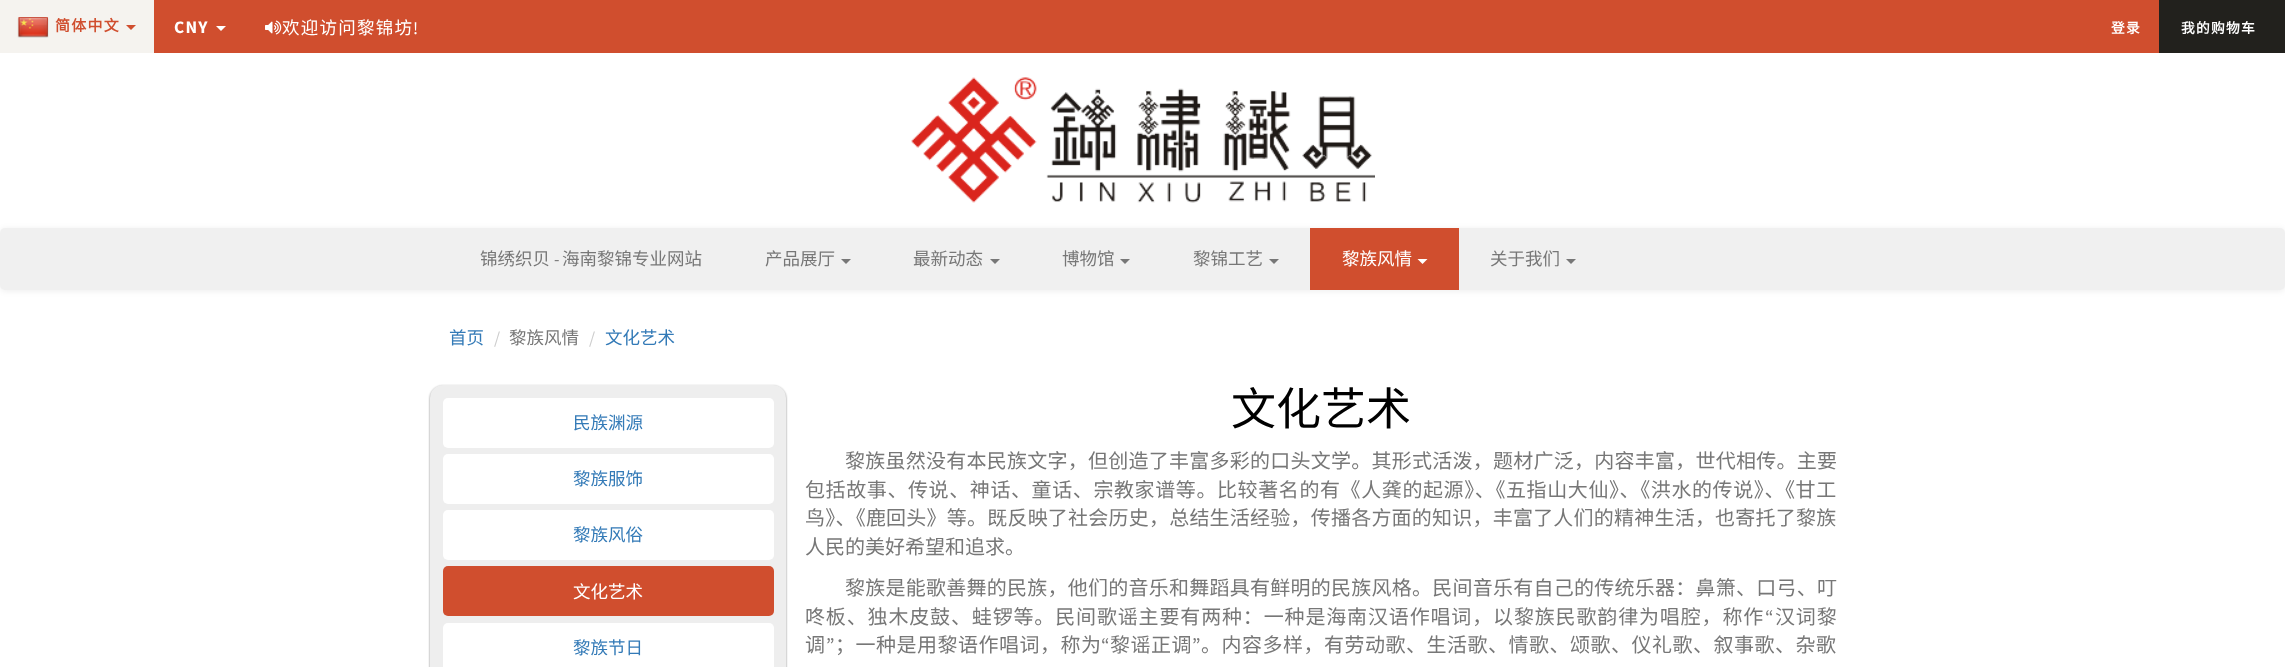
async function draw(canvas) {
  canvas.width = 2285;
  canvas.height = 667;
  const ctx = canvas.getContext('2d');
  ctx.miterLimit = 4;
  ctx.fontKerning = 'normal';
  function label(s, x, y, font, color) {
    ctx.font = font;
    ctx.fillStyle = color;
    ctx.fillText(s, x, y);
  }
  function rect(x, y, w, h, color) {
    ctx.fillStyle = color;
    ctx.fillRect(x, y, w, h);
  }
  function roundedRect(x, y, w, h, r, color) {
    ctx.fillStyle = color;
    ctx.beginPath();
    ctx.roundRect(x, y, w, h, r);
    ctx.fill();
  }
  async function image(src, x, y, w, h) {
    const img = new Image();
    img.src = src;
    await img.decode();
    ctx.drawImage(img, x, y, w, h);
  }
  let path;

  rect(0, 0, 2285, 667, '#fff');
  rect(154, 0, 2005, 53, '#d04e2e');
  rect(0, 0, 154, 53, '#f5f3ef');
  await image('assets/img1.png', 17, 17, 32, 21);
  ctx.letterSpacing = '1.25px';
  label('简体中文', 55, 31, 'bold 15px Noto Sans CJK SC', '#d04e2e');
  path = new Path2D('M126 25H136L131 30Z');
  ctx.fill(path);
  label('CNY', 174, 33, 'bold 17.5px Source Sans Pro', '#fff');
  path = new Path2D('M216 26H226L221 31Z');
  ctx.fill(path);
  await image('assets/img2.png', 265, 20, 17, 15);
  label('欢迎访问黎锦坊', 282, 34, '17.5px Noto Sans CJK SC', '#fff');
  label('!', 413, 34, '17.5px Source Sans Pro', '#fff');
  label('登录', 2111, 33, 'bold 13.75px Noto Sans CJK SC', '#fff');
  rect(2159, 0, 126, 53, '#22211d');
  label('我的购物车', 2181, 33, 'bold 13.75px Noto Sans CJK SC', '#fff');
  await image('assets/img3.png', 911, 77, 464, 126);
  ctx.fillStyle = '#00000012';
  ctx.filter = 'blur(3px)';
  ctx.beginPath();
  ctx.roundRect(0, 229, 2285, 62, 5);
  ctx.fill();
  ctx.filter = 'none';
  roundedRect(0, 228, 2285, 62, 5, '#f0f0f0');
  ctx.letterSpacing = '0px';
  label('锦绣织贝', 480, 265, '17.5px Noto Sans CJK SC', '#777');
  label('-', 554, 265, '17.5px Source Sans Pro', '#777');
  label('海南黎锦专业网站', 562, 265, '17.5px Noto Sans CJK SC', '#777');
  label('产品展厅', 765, 265, '17.5px Noto Sans CJK SC', '#777');
  path = new Path2D('M841 259H851L846 264Z');
  ctx.fill(path);
  label('最新动态', 913, 265, '17.5px Noto Sans CJK SC', '#777');
  path = new Path2D('M990 259H1000L995 264Z');
  ctx.fill(path);
  label('博物馆', 1062, 265, '17.5px Noto Sans CJK SC', '#777');
  path = new Path2D('M1120 259H1130L1125 264Z');
  ctx.fill(path);
  label('黎锦工艺', 1193, 265, '17.5px Noto Sans CJK SC', '#777');
  path = new Path2D('M1269 259H1279L1274 264Z');
  ctx.fill(path);
  rect(1310, 228, 149, 62, '#d04e2e');
  label('黎族风情', 1342, 265, '17.5px Noto Sans CJK SC', '#fff');
  path = new Path2D('M1417.5 259H1427.5L1422.5 264Z');
  ctx.fill(path);
  label('关于我们', 1490, 265, '17.5px Noto Sans CJK SC', '#777');
  path = new Path2D('M1566 259H1576L1571 264Z');
  ctx.fill(path);
  label('首页', 449, 344, '17.5px Noto Sans CJK SC', '#337ab7');
  label('/', 494, 344, '17.5px Source Sans Pro', '#ccc');
  label('黎族风情', 509, 344, '17.5px Noto Sans CJK SC', '#777');
  label('/', 589, 344, '17.5px Source Sans Pro', '#ccc');
  label('文化艺术', 605, 344, '17.5px Noto Sans CJK SC', '#337ab7');
  ctx.fillStyle = '#888';
  ctx.filter = 'blur(1px)';
  ctx.beginPath();
  ctx.roundRect(430, 386, 356, 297, 13);
  ctx.fill();
  ctx.filter = 'none';
  roundedRect(430, 385, 356, 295, 13, '#eee');
  roundedRect(443, 398, 331, 50, 5, '#fff');
  label('民族渊源', 573, 429, '17.5px Noto Sans CJK SC', '#337ab7');
  roundedRect(443, 454, 331, 50, 5, '#fff');
  label('黎族服饰', 573, 485, '17.5px Noto Sans CJK SC', '#337ab7');
  roundedRect(443, 510, 331, 50, 5, '#fff');
  label('黎族风俗', 573, 541, '17.5px Noto Sans CJK SC', '#337ab7');
  roundedRect(443, 566, 331, 50, 5, '#d04e2e');
  label('文化艺术', 573, 598, '17.5px Noto Sans CJK SC', '#fff');
  roundedRect(443, 623, 331, 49, 5, '#fff');
  label('黎族节日', 573, 654, '17.5px Noto Sans CJK SC', '#337ab7');
  label('文化艺术', 1231, 425, '45px Noto Sans CJK SC', '#000');
  ctx.letterSpacing = '0.25px';
  label('黎族虽然没有本民族文字，但创造了丰富多彩的口头文学。其形式活泼，题材广泛，内容丰富，世代相传。主要', 845, 468, '20px Noto Sans CJK SC', '#777');
  ctx.letterSpacing = '0.6px';
  label('包括故事、传说、神话、童话、宗教家谱等。比较著名的有《人龚的起源》、《五指山大仙》、《洪水的传说》、《甘工', 805, 497, '20px Noto Sans CJK SC', '#777');
  ctx.letterSpacing = '0.22px';
  label('鸟》、《鹿回头》等。既反映了社会历史，总结生活经验，传播各方面的知识，丰富了人们的精神生活，也寄托了黎族', 805, 525, '20px Noto Sans CJK SC', '#777');
  ctx.letterSpacing = '0px';
  label('人民的美好希望和追求。', 805, 554, '20px Noto Sans CJK SC', '#777');
  ctx.letterSpacing = '0.25px';
  label('黎族是能歌善舞的民族，他们的音乐和舞蹈具有鲜明的民族风格。民间音乐有自己的传统乐器：鼻箫、口弓、叮', 845, 595, '20px Noto Sans CJK SC', '#777');
  ctx.letterSpacing = '0.85px';
  label('咚板、独木皮鼓、蛙锣等。民间歌谣主要有两种：一种是海南汉语作唱词，以黎族民歌韵律为唱腔，称作', 805, 624, '20px Noto Sans CJK SC', '#777');
  label('“', 1765, 624, '20px Source Sans Pro', '#777');
  label('汉词黎', 1775, 624, '20px Noto Sans CJK SC', '#777');
  ctx.letterSpacing = '0.5px';
  label('调', 805, 652, '20px Noto Sans CJK SC', '#777');
  label('”', 826, 652, '20px Source Sans Pro', '#777');
  label('；一种是用黎语作唱词，称为', 835, 652, '20px Noto Sans CJK SC', '#777');
  label('“', 1101, 652, '20px Source Sans Pro', '#777');
  label('黎谣正调', 1110, 652, '20px Noto Sans CJK SC', '#777');
  label('”', 1192, 652, '20px Source Sans Pro', '#777');
  label('。内容多样，有劳动歌、生活歌、情歌、颂歌、仪礼歌、叙事歌、杂歌', 1201, 652, '20px Noto Sans CJK SC', '#777');
}

draw(document.querySelector('canvas'));
